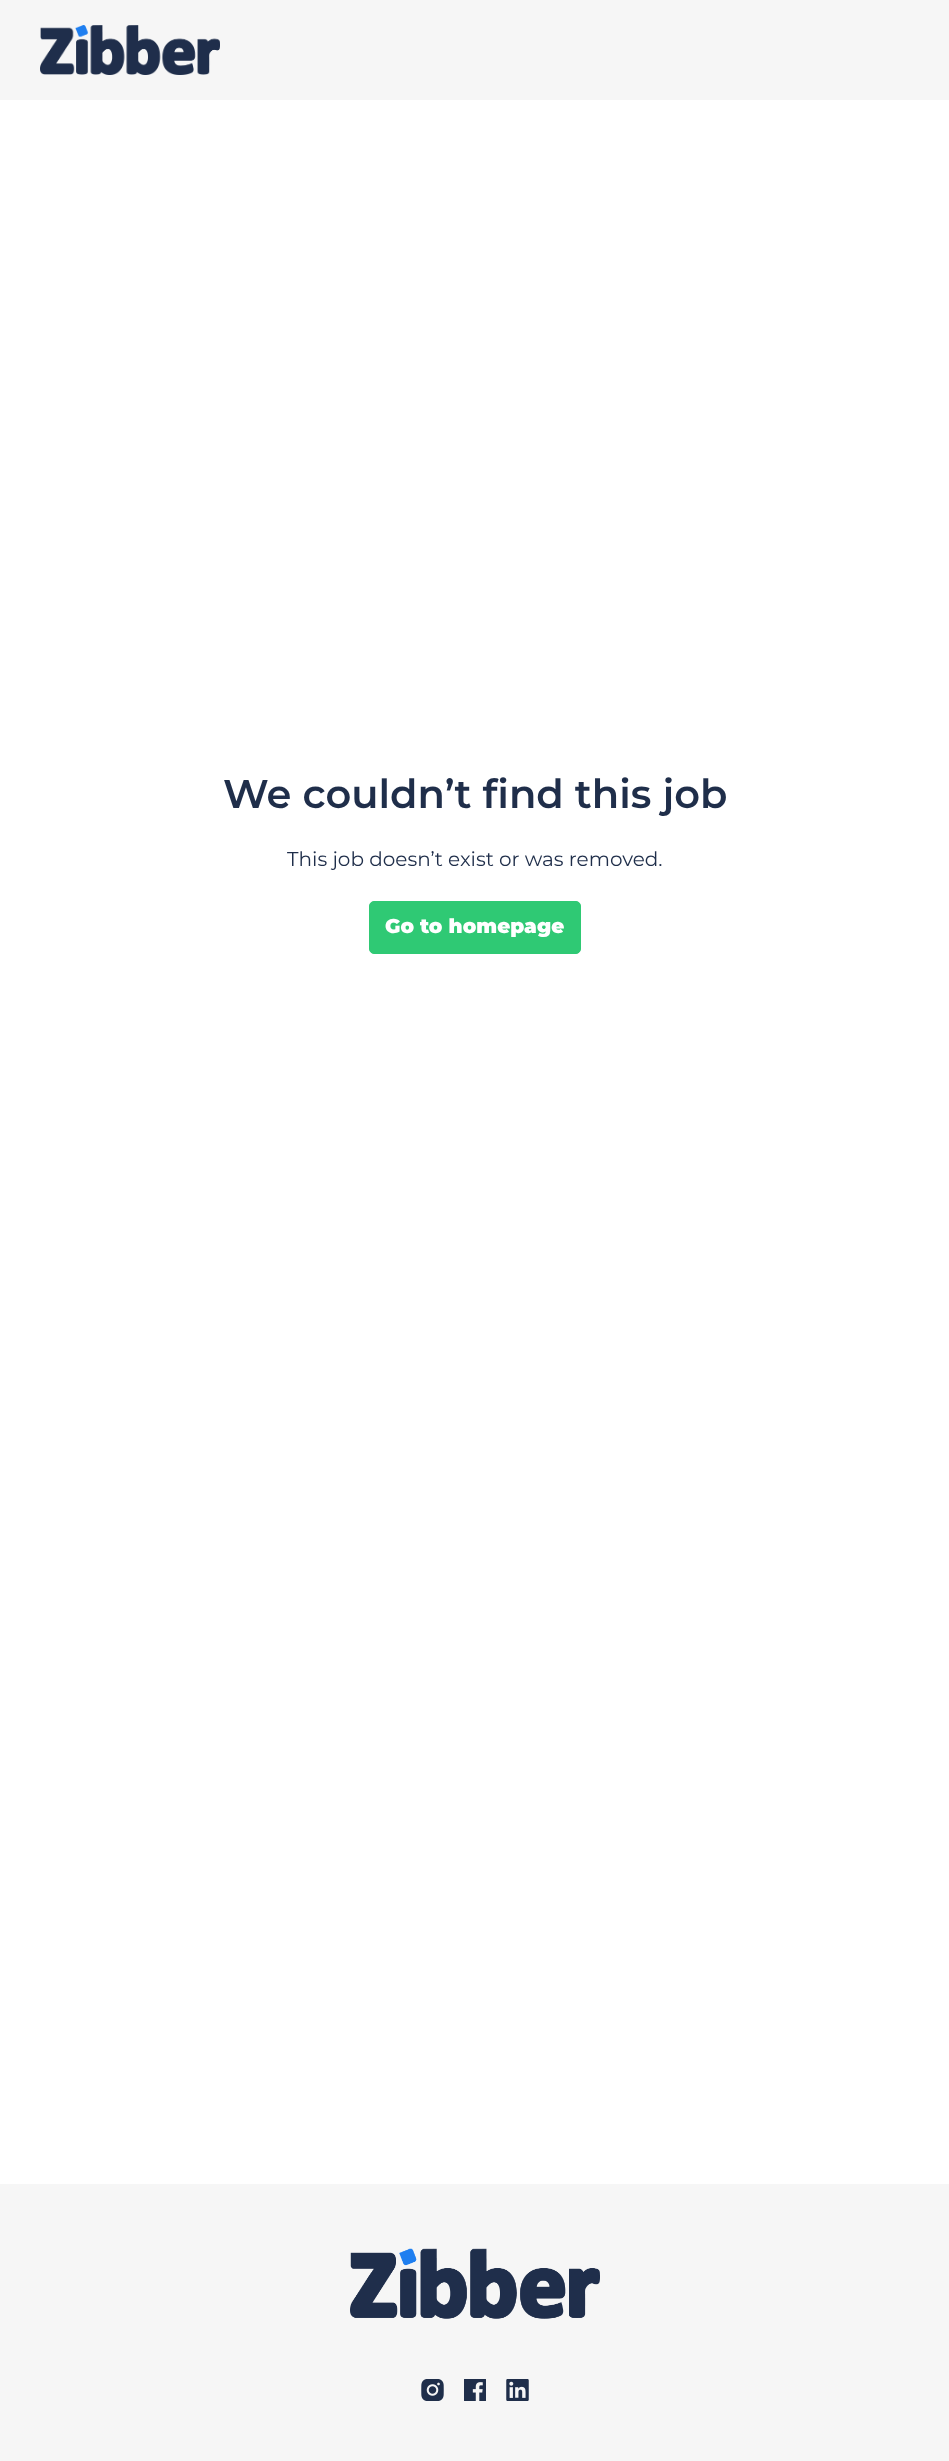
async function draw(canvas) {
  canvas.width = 949;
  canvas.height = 2461;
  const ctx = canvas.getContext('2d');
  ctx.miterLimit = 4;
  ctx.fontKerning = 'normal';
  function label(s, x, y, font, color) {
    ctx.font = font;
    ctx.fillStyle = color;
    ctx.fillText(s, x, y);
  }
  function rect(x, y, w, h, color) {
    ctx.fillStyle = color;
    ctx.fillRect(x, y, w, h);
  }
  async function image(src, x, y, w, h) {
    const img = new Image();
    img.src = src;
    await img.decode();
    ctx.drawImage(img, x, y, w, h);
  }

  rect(0, 0, 949, 2461, '#fff');
  rect(0, 0, 949, 100, '#f6f6f6');
  await image('assets/img1.png', 40, 25, 180, 50);
  label('We couldn’t find this job', 223, 808, '600 40px Montserrat', '#1f2e4a');
  label('This job doesn’t exist or was removed.', 287, 866, '20px Montserrat', '#1f2e4a');
  ctx.fillStyle = '#2fc974';
  ctx.beginPath();
  ctx.roundRect(369.5, 901.5, 211, 52, 4.5);
  ctx.fill();
  ctx.strokeStyle = '#2fc974';
  ctx.stroke();
  label('Go to homepage', 385, 933, '900 20px Montserrat', '#fff');
  rect(0, 2184, 949, 277, '#f6f6f6');
  await image('assets/img2.png', 350, 2248, 250, 71);
  await image('assets/img3.png', 421, 2379, 23, 22);
  await image('assets/img4.png', 464, 2379, 22, 22);
  await image('assets/img5.png', 506, 2379, 23, 22);
}

draw(document.querySelector('canvas'));
